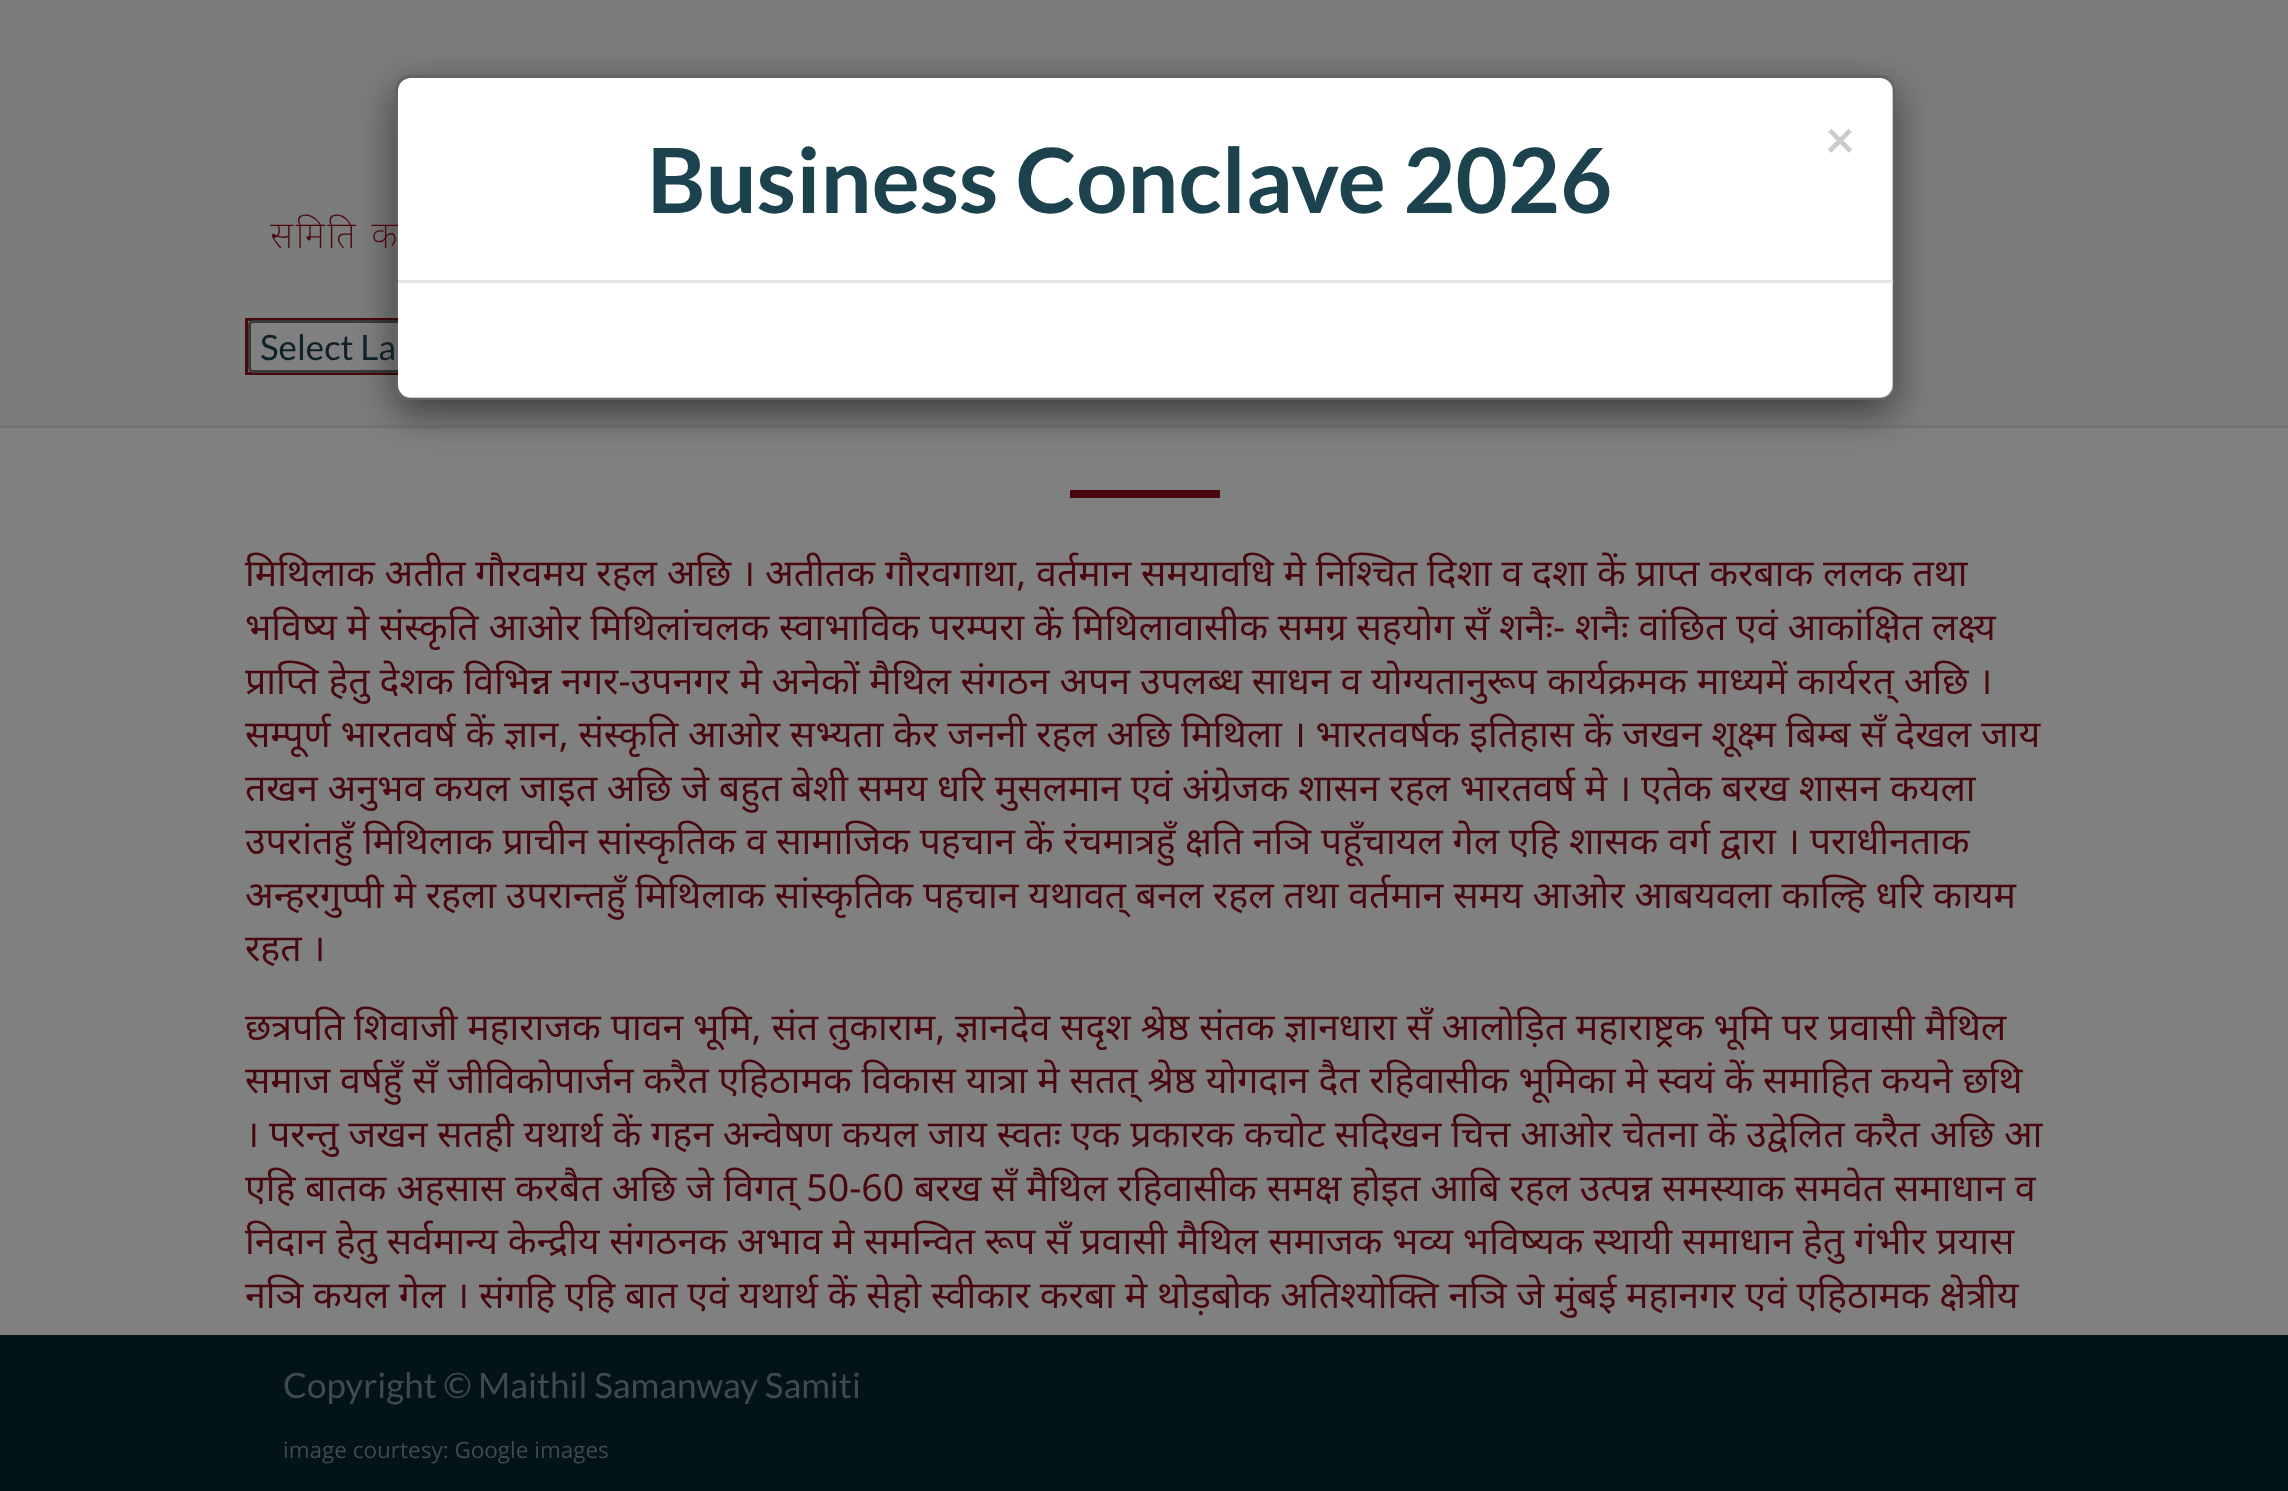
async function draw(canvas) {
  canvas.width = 2288;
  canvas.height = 1491;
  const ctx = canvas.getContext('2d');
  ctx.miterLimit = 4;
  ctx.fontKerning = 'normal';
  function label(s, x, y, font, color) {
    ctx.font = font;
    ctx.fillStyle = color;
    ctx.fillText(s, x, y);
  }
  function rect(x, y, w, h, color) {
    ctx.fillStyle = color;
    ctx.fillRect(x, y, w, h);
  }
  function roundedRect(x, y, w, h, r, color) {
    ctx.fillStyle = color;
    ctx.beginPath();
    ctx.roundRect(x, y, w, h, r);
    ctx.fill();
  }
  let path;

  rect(0, 0, 2288, 1491, '#808080');
  rect(0, 0, 2288, 425, '#7c7c7c');
  rect(0, 425, 2288, 3, '#747474');
  ctx.strokeStyle = '#49080e';
  ctx.lineWidth = 3;
  ctx.strokeRect(246.5, 319.5, 320, 54);
  ctx.fillStyle = '#808080';
  ctx.beginPath();
  ctx.roundRect(249.5, 321.5, 314, 50, 3.5);
  ctx.fill();
  ctx.strokeStyle = '#3b3b3b';
  ctx.stroke();
  ctx.save();
  path = new Path2D('M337 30H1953V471H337ZM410 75H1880C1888.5 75 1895 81.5 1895 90V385C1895 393.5 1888.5 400 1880 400H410C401.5 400 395 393.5 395 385V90C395 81.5 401.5 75 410 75Z');
  ctx.clip(path, 'evenodd');
  ctx.fillStyle = '#00000080';
  ctx.filter = 'blur(19px)';
  ctx.beginPath();
  ctx.roundRect(395, 88, 1500, 325, 15);
  ctx.fill();
  ctx.filter = 'none';
  ctx.restore();
  ctx.letterSpacing = '2.5px';
  ctx.wordSpacing = '1px';
  label('समिति क', 270, 248, '200 37.5px Noto Sans', '#49080e');
  roundedRect(398, 78, 1495, 320, 13, '#fff');
  ctx.beginPath();
  ctx.roundRect(396.5, 76.5, 1497, 322, 13.5);
  ctx.strokeStyle = '#00000033';
  ctx.stroke();
  rect(398, 280, 1495, 3, '#e5e5e5');
  ctx.letterSpacing = '0px';
  ctx.wordSpacing = '0px';
  label('×', 1825, 158, 'bold 52px Lato', '#ccc');
  label('Business Conclave 2026', 647, 213, 'bold 90px Lato', '#1c424d');
  label('Select La', 260, 360, '35px Lato', '#0e2127');
  rect(1070, 490, 150, 8, '#49080e');
  label('मिथिलाक अतीत गौरवमय रहल अछि । अतीतक गौरवगाथा, वर्तमान समयावधि मे निश्चित दिशा व दशा कें प्राप्त करबाक ललक तथा', 245, 586, '37.5px Noto Sans', '#49080e');
  label('भविष्य मे संस्कृति आओर मिथिलांचलक स्वाभाविक परम्परा कें मिथिलावासीक समग्र सहयोग सँ शनैः- शनैः वांछित एवं आकांक्षित लक्ष्य', 245, 640, '37.5px Noto Sans', '#49080e');
  label('प्राप्ति हेतु देशक विभिन्न नगर-उपनगर मे अनेकों मैथिल संगठन अपन उपलब्ध साधन व योग्यतानुरूप कार्यक्रमक माध्यमें कार्यरत् अछि ।', 245, 694, '37.5px Noto Sans', '#49080e');
  label('सम्पूर्ण भारतवर्ष कें ज्ञान, संस्कृति आओर सभ्यता केर जननी रहल अछि मिथिला । भारतवर्षक इतिहास कें जखन शूक्ष्म बिम्ब सँ देखल जाय', 245, 747, '37.5px Noto Sans', '#49080e');
  label('तखन अनुभव कयल जाइत अछि जे बहुत बेशी समय धरि मुसलमान एवं अंग्रेजक शासन रहल भारतवर्ष मे । एतेक बरख शासन कयला', 245, 801, '37.5px Noto Sans', '#49080e');
  label('उपरांतहुँ मिथिलाक प्राचीन सांस्कृतिक व सामाजिक पहचान कें रंचमात्रहुँ क्षति नञि पहूँचायल गेल एहि शासक वर्ग द्वारा । पराधीनताक', 245, 854, '37.5px Noto Sans', '#49080e');
  label('अन्हरगुप्पी मे रहला उपरान्तहुँ मिथिलाक सांस्कृतिक पहचान यथावत् बनल रहल तथा वर्तमान समय आओर आबयवला काल्हि धरि कायम', 245, 908, '37.5px Noto Sans', '#49080e');
  label('रहत ।', 245, 961, '37.5px Noto Sans', '#49080e');
  label('छत्रपति शिवाजी महाराजक पावन भूमि, संत तुकाराम, ज्ञानदेव सदृश श्रेष्ठ संतक ज्ञानधारा सँ आलोड़ित महाराष्ट्रक भूमि पर प्रवासी मैथिल', 245, 1040, '37.5px Noto Sans', '#49080e');
  label('समाज वर्षहुँ सँ जीविकोपार्जन करैत एहिठामक विकास यात्रा मे सतत् श्रेष्ठ योगदान दैत रहिवासीक भूमिका मे स्वयं कें समाहित कयने छथि', 245, 1093, '37.5px Noto Sans', '#49080e');
  label('। परन्तु जखन सतही यथार्थ कें गहन अन्वेषण कयल जाय स्वतः एक प्रकारक कचोट सदिखन चित्त आओर चेतना कें उद्वेलित करैत अछि आ', 245, 1147, '37.5px Noto Sans', '#49080e');
  label('एहि बातक अहसास करबैत अछि जे विगत् 50-60 बरख सँ मैथिल रहिवासीक समक्ष होइत आबि रहल उत्पन्न समस्याक समवेत समाधान व', 245, 1201, '37.5px Noto Sans', '#49080e');
  label('निदान हेतु सर्वमान्य केन्द्रीय संगठनक अभाव मे समन्वित रूप सँ प्रवासी मैथिल समाजक भव्य भविष्यक स्थायी समाधान हेतु गंभीर प्रयास', 245, 1254, '37.5px Noto Sans', '#49080e');
  label('नञि कयल गेल । संगहि एहि बात एवं यथार्थ कें सेहो स्वीकार करबा मे थोड़बोक अतिश्योक्ति नञि जे मुंबई महानगर एवं एहिठामक क्षेत्रीय', 245, 1308, '37.5px Noto Sans', '#49080e');
  rect(0, 1335, 2288, 156, '#021419');
  label('Copyright © Maithil Samanway Samiti', 283, 1398, '35px Lato', '#414a4c');
  label('image courtesy: Google images', 283, 1458, '22.5px Open Sans', '#414a4c');
}

draw(document.querySelector('canvas'));
